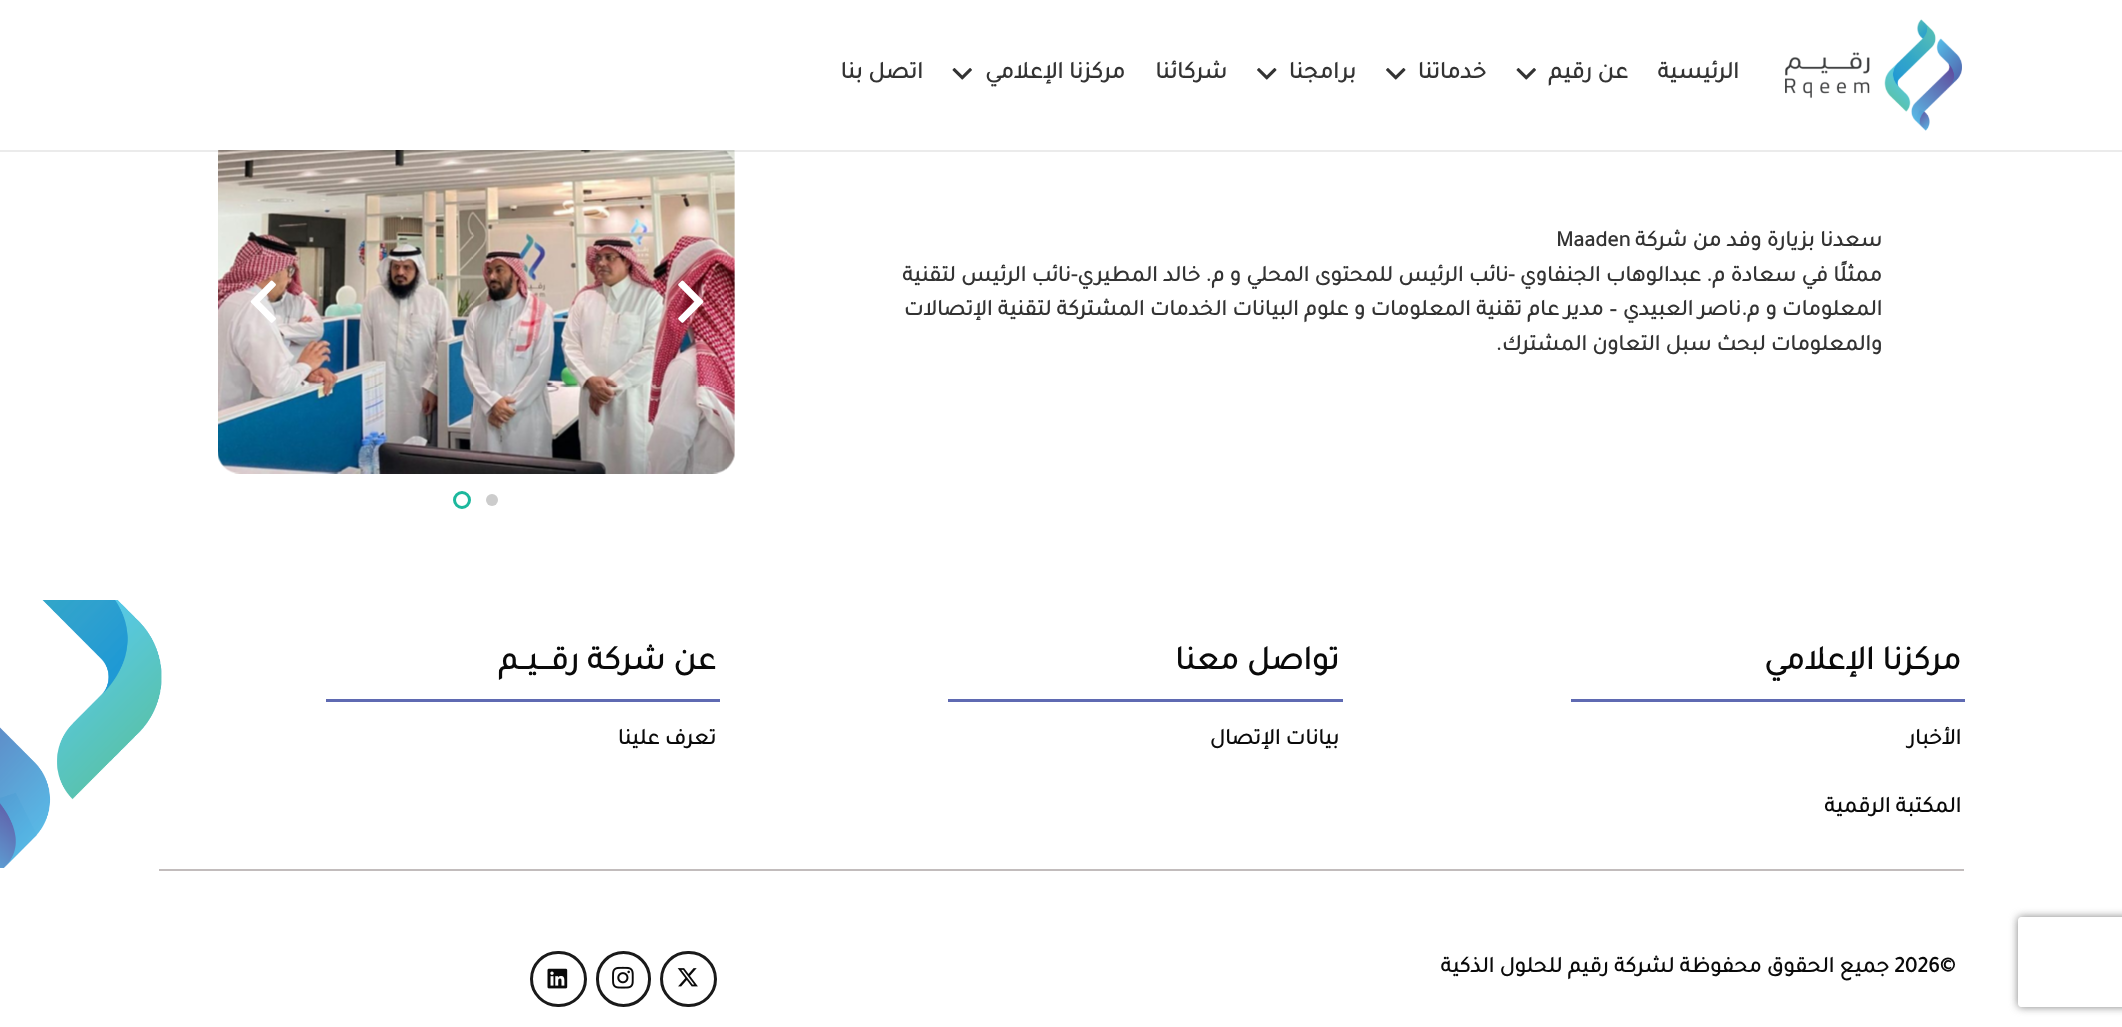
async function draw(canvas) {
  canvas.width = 2122;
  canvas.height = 1027;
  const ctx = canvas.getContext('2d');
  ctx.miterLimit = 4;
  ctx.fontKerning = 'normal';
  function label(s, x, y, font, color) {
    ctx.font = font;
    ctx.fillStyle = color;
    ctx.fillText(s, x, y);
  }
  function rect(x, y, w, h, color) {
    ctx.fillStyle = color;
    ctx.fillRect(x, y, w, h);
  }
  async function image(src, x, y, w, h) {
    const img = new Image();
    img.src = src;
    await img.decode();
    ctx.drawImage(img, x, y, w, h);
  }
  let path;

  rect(0, 0, 2122, 1027, '#fff');
  await image('assets/img4.png', 218, 150, 517, 324);
  ctx.fillStyle = '#00000014';
  path = new Path2D('M0 150V152H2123V2H2122V150Z');
  ctx.fill(path);
  await image('assets/img1.png', 1785, 19, 177, 112);
  ctx.direction = 'rtl';
  label('الرئيسية', 1739, 78, 'bold 24px Tajawal', '#333');
  label('عن رقيم', 1628, 78, 'bold 24px Tajawal', '#333');
  await image('assets/img2.png', 1516, 68, 20, 12);
  label('خدماتنا', 1486, 78, 'bold 24px Tajawal', '#333');
  await image('assets/img3.png', 1386, 68, 20, 12);
  label('برامجنا', 1356, 78, 'bold 24px Tajawal', '#333');
  await image('assets/img3.png', 1257, 68, 20, 12);
  label('شركائنا', 1227, 78, 'bold 24px Tajawal', '#333');
  label('مركزنا الإعلامي', 1125, 78, 'bold 24px Tajawal', '#333');
  await image('assets/img2.png', 952, 68, 20, 12);
  label('اتصل بنا', 923, 78, 'bold 24px Tajawal', '#333');
  label('سعدنا بزيارة وفد من شركة', 1882, 246, 'bold 22.5px Tajawal', '#333');
  ctx.direction = 'ltr';
  label('Maaden', 1556, 246, 'bold 22.5px Tajawal', '#333');
  ctx.direction = 'rtl';
  label('ممثلًا في سعادة م. عبدالوهاب الجنفاوي -نائب الرئيس للمحتوى المحلي و م. خالد المطيري-نائب الرئيس لتقنية', 1882, 281, 'bold 22.5px Tajawal', '#333');
  label('المعلومات و م.ناصر العبيدي – مدير عام تقنية المعلومات و علوم البيانات الخدمات المشتركة لتقنية الإتصالات', 1882, 315, 'bold 22.5px Tajawal', '#333');
  label('والمعلومات لبحث سبل التعاون المشترك.', 1882, 350, 'bold 22.5px Tajawal', '#333');
  await image('assets/img5.png', 678, 280, 26, 43);
  await image('assets/img6.png', 250, 280, 26, 43);
  ctx.fillStyle = '#ccc';
  ctx.beginPath();
  ctx.arc(492, 500, 6, 0, 2 * Math.PI);
  ctx.fill();
  ctx.beginPath();
  ctx.arc(462, 500, 7.5, 0, 2 * Math.PI);
  ctx.strokeStyle = '#1cb89d';
  ctx.lineWidth = 3;
  ctx.stroke();
  ctx.save();
  path = new Path2D('M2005 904H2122V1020H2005ZM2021 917H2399C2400.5 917 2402 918.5 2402 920V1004C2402 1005.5 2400.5 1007 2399 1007H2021C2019.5 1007 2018 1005.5 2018 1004V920C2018 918.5 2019.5 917 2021 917Z');
  ctx.clip(path, 'evenodd');
  ctx.fillStyle = '#808080';
  ctx.filter = 'blur(4px)';
  ctx.beginPath();
  ctx.roundRect(2018, 917, 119, 90, 3);
  ctx.fill();
  ctx.filter = 'none';
  ctx.restore();
  label('مركزنا الإعلامي', 1961, 669, 'bold 33.75px Tajawal', '#0a0a0a');
  rect(1571, 699, 394, 3, '#5f6ab2');
  label('الأخبار', 1961, 744, 'bold 22.5px Tajawal', '#0a0a0a');
  label('المكتبة الرقمية', 1961, 812, 'bold 22.5px Tajawal', '#0a0a0a');
  label('تواصل معنا', 1339, 669, 'bold 33.75px Tajawal', '#0a0a0a');
  rect(948, 699, 395, 3, '#5f6ab2');
  label('بيانات الإتصال', 1339, 744, 'bold 22.5px Tajawal', '#0a0a0a');
  label('عن شركة رقـــيــم', 716, 669, 'bold 33.75px Tajawal', '#0a0a0a');
  rect(326, 699, 394, 3, '#5f6ab2');
  label('تعرف علينا', 716, 744, 'bold 22.5px Tajawal', '#0a0a0a');
  await image('assets/img7.png', 0, 600, 162, 268);
  rect(159, 869, 1805, 2, '#c2bcbc');
  ctx.direction = 'ltr';
  label('2026©', 1894, 972, 'bold 22.5px Tajawal', '#0a0a0a');
  ctx.direction = 'rtl';
  label('جميع الحقوق محفوظة لشركة رقيم للحلول الذكية', 1889, 972, 'bold 22.5px Tajawal', '#0a0a0a');
  ctx.beginPath();
  ctx.roundRect(661.5, 952.5, 54, 53, 26.5);
  ctx.strokeStyle = '#1a1a1a';
  ctx.stroke();
  await image('assets/img8.png', 677, 968, 21, 19);
  ctx.beginPath();
  ctx.roundRect(597.5, 952.5, 52, 53, 26);
  ctx.stroke();
  await image('assets/img9.png', 612, 966, 22, 23);
  ctx.beginPath();
  ctx.roundRect(531.5, 952.5, 54, 53, 26.5);
  ctx.stroke();
  await image('assets/img10.png', 547, 968, 21, 21);
}

draw(document.querySelector('canvas'));
